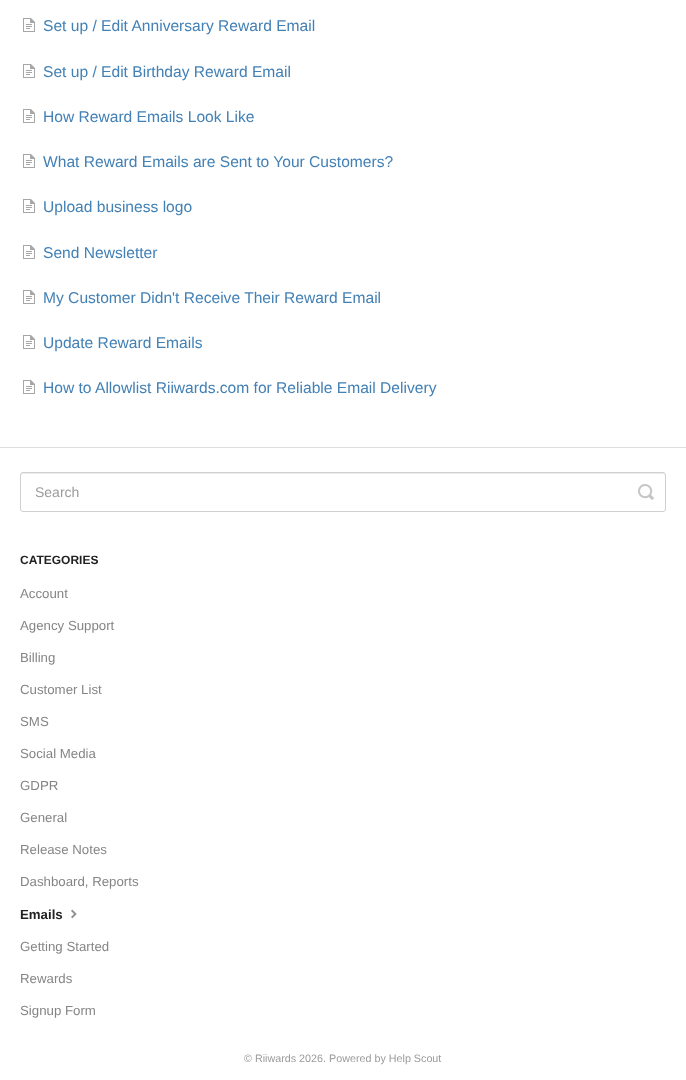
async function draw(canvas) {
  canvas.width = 686;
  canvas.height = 1080;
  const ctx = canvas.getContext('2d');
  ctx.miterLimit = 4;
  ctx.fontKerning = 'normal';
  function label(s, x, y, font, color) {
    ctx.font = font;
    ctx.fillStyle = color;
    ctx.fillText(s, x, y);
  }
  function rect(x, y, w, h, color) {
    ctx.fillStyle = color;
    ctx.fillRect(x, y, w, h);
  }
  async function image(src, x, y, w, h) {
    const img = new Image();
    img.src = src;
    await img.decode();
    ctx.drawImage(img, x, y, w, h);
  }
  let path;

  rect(0, 0, 686, 1080, '#fff');
  rect(0, 447, 686, 1, '#dedede');
  await image('assets/img1.png', 23, 18, 12, 14);
  label('Set up / Edit Anniversary Reward Email', 43, 31, '15.6px Liberation Sans', '#4381b5');
  await image('assets/img1.png', 23, 64, 12, 14);
  label('Set up / Edit Birthday Reward Email', 43, 77, '15.6px Liberation Sans', '#4381b5');
  await image('assets/img1.png', 23, 109, 12, 14);
  label('How Reward Emails Look Like', 43, 122, '15.6px Liberation Sans', '#4381b5');
  await image('assets/img1.png', 23, 154, 12, 14);
  label('What Reward Emails are Sent to Your Customers?', 43, 167, '15.6px Liberation Sans', '#4381b5');
  await image('assets/img1.png', 23, 199, 12, 14);
  label('Upload business logo', 43, 212, '15.6px Liberation Sans', '#4381b5');
  await image('assets/img1.png', 23, 245, 12, 14);
  label('Send Newsletter', 43, 258, '15.6px Liberation Sans', '#4381b5');
  await image('assets/img1.png', 23, 290, 12, 14);
  label('My Customer Didn\'t Receive Their Reward Email', 43, 303, '15.6px Liberation Sans', '#4381b5');
  await image('assets/img1.png', 23, 335, 12, 14);
  label('Update Reward Emails', 43, 348, '15.6px Liberation Sans', '#4381b5');
  await image('assets/img1.png', 23, 380, 12, 14);
  label('How to Allowlist Riiwards.com for Reliable Email Delivery', 43, 393, '15.6px Liberation Sans', '#4381b5');
  ctx.fillStyle = '#ececec';
  path = new Path2D('M23 474H663C664 474 665 475 665 476C665 475 665 473 663 473H23C21 473 21 475 21 476C21 475 22 474 23 474Z');
  ctx.fill(path);
  ctx.beginPath();
  ctx.roundRect(20.5, 472.5, 645, 39, 2.5);
  ctx.strokeStyle = '#d0d0d0';
  ctx.stroke();
  label('Search', 35, 497, '14px Liberation Sans', '#9b9b9b');
  await image('assets/img2.png', 638, 484, 16, 16);
  label('CATEGORIES', 20, 564, 'bold 12px Liberation Sans', '#222');
  label('Account', 20, 598, '13.25px Liberation Sans', '#858585');
  label('Agency Support', 20, 630, '13.25px Liberation Sans', '#858585');
  label('Billing', 20, 662, '13.25px Liberation Sans', '#858585');
  label('Customer List', 20, 694, '13.25px Liberation Sans', '#858585');
  label('SMS', 20, 726, '13.25px Liberation Sans', '#858585');
  label('Social Media', 20, 758, '13.25px Liberation Sans', '#858585');
  label('GDPR', 20, 790, '13.25px Liberation Sans', '#858585');
  label('General', 20, 822, '13.25px Liberation Sans', '#858585');
  label('Release Notes', 20, 854, '13.25px Liberation Sans', '#858585');
  label('Dashboard, Reports', 20, 886, '13.25px Liberation Sans', '#858585');
  label('Emails', 20, 919, 'bold 13.25px Liberation Sans', '#222');
  await image('assets/img3.png', 71, 909, 6, 10);
  label('Getting Started', 20, 951, '13.25px Liberation Sans', '#858585');
  label('Rewards', 20, 983, '13.25px Liberation Sans', '#858585');
  label('Signup Form', 20, 1015, '13.25px Liberation Sans', '#858585');
  label('© Riiwards 2026. Powered by Help Scout', 244, 1062, '10.75px Liberation Sans', '#9b9b9b');
}

draw(document.querySelector('canvas'));
